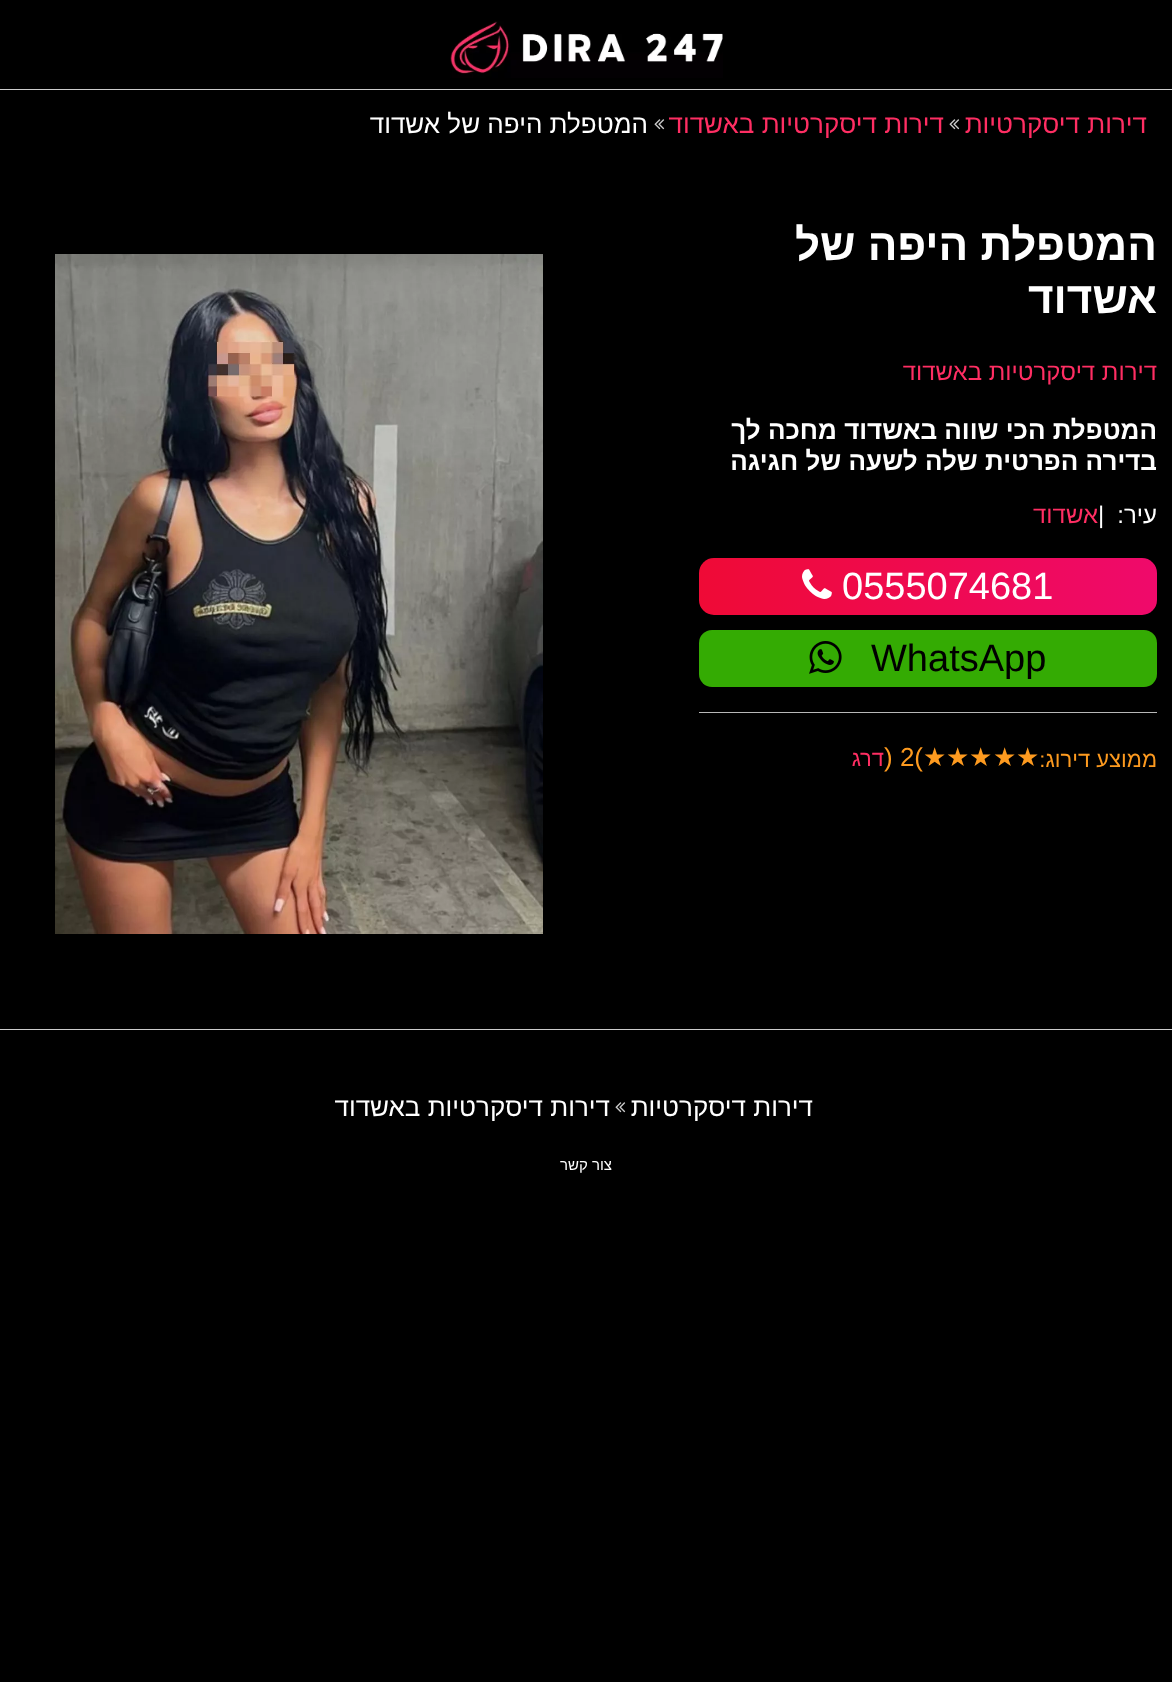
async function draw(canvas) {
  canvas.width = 1172;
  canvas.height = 1682;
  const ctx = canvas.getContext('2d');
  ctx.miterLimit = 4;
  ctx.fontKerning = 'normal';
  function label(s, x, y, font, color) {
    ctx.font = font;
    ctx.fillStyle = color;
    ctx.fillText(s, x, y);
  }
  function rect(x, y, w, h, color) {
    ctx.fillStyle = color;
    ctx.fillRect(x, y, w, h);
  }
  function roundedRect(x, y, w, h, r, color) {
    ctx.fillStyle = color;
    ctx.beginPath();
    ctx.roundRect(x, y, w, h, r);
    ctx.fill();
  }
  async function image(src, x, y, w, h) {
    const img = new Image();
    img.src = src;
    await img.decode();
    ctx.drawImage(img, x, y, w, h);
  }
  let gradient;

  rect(0, 0, 1172, 1682, '#000');
  rect(0, 89, 1172, 1, '#ccc');
  await image('assets/img1.png', 450, 21, 273, 57);
  ctx.direction = 'rtl';
  label('דירות דיסקרטיות', 1147, 133, '26px Liberation Sans', '#ff2e63');
  await image('assets/img2.png', 949, 119, 11, 11);
  label('דירות דיסקרטיות באשדוד', 944, 133, '26px Liberation Sans', '#ff2e63');
  await image('assets/img2.png', 654, 119, 11, 11);
  label('המטפלת היפה של אשדוד', 648, 133, '26px Liberation Sans', '#fff');
  label('המטפלת היפה של', 1157, 260, 'bold 44px Liberation Sans', '#fff');
  label('אשדוד', 1157, 313, 'bold 44px Liberation Sans', '#fff');
  label('דירות דיסקרטיות באשדוד', 1157, 380, '24px Liberation Sans', '#ff2e63');
  label('המטפלת הכי שווה באשדוד מחכה לך', 1157, 439, 'bold 26px Liberation Sans', '#fff');
  label('בדירה הפרטית שלה לשעה של חגיגה', 1157, 470, 'bold 26px Liberation Sans', '#fff');
  label('עיר:', 1157, 523, '24px Liberation Sans', '#fff');
  ctx.direction = 'ltr';
  label('|', 1098, 523, '24px Liberation Sans', '#fff');
  ctx.direction = 'rtl';
  label('אשדוד', 1098, 523, '24px Liberation Sans', '#ff2e63');
  gradient = ctx.createLinearGradient(699, 587, 1157, 587);
  gradient.addColorStop(0, '#ef0a36');
  gradient.addColorStop(1, '#ef0a6b');
  ctx.fillStyle = gradient;
  ctx.beginPath();
  ctx.roundRect(699, 558, 458, 57, 15);
  ctx.fill();
  ctx.direction = 'ltr';
  label('0555074681', 842, 599, '38px Liberation Sans', '#fff');
  await image('assets/img3.png', 802, 569, 30, 30);
  roundedRect(699, 630, 458, 57, 13, '#34ab03');
  label('WhatsApp', 871, 671, '38px Liberation Sans', '#000');
  await image('assets/img4.png', 809, 641, 33, 33);
  rect(699, 712, 458, 1, '#b8b8b8');
  ctx.direction = 'rtl';
  label('ממוצע דירוג:', 1157, 767, '22px Liberation Sans', '#fd9a1f');
  ctx.direction = 'ltr';
  label('★', 1016, 766, '26px DejaVu Sans', '#fd9a1f');
  label('★', 993, 766, '26px DejaVu Sans', '#fd9a1f');
  label('★', 969, 766, '26px DejaVu Sans', '#fd9a1f');
  label('★', 946, 766, '26px DejaVu Sans', '#fd9a1f');
  label('★', 923, 766, '26px DejaVu Sans', '#fd9a1f');
  label(') 2(', 884, 766, '26px Liberation Sans', '#fd9a1f');
  ctx.direction = 'rtl';
  label('דרג', 884, 766, '22px Liberation Sans', '#ff2e63');
  await image('assets/img5.png', 55, 254, 488, 680);
  rect(0, 1029, 1172, 1, '#ccc');
  label('דירות דיסקרטיות', 813, 1116, '26px Liberation Sans', '#fff');
  await image('assets/img2.png', 615, 1102, 11, 11);
  label('דירות דיסקרטיות באשדוד', 610, 1116, '26px Liberation Sans', '#fff');
  label('צור קשר', 612, 1170, '15px Liberation Sans', '#fff');
}

draw(document.querySelector('canvas'));
